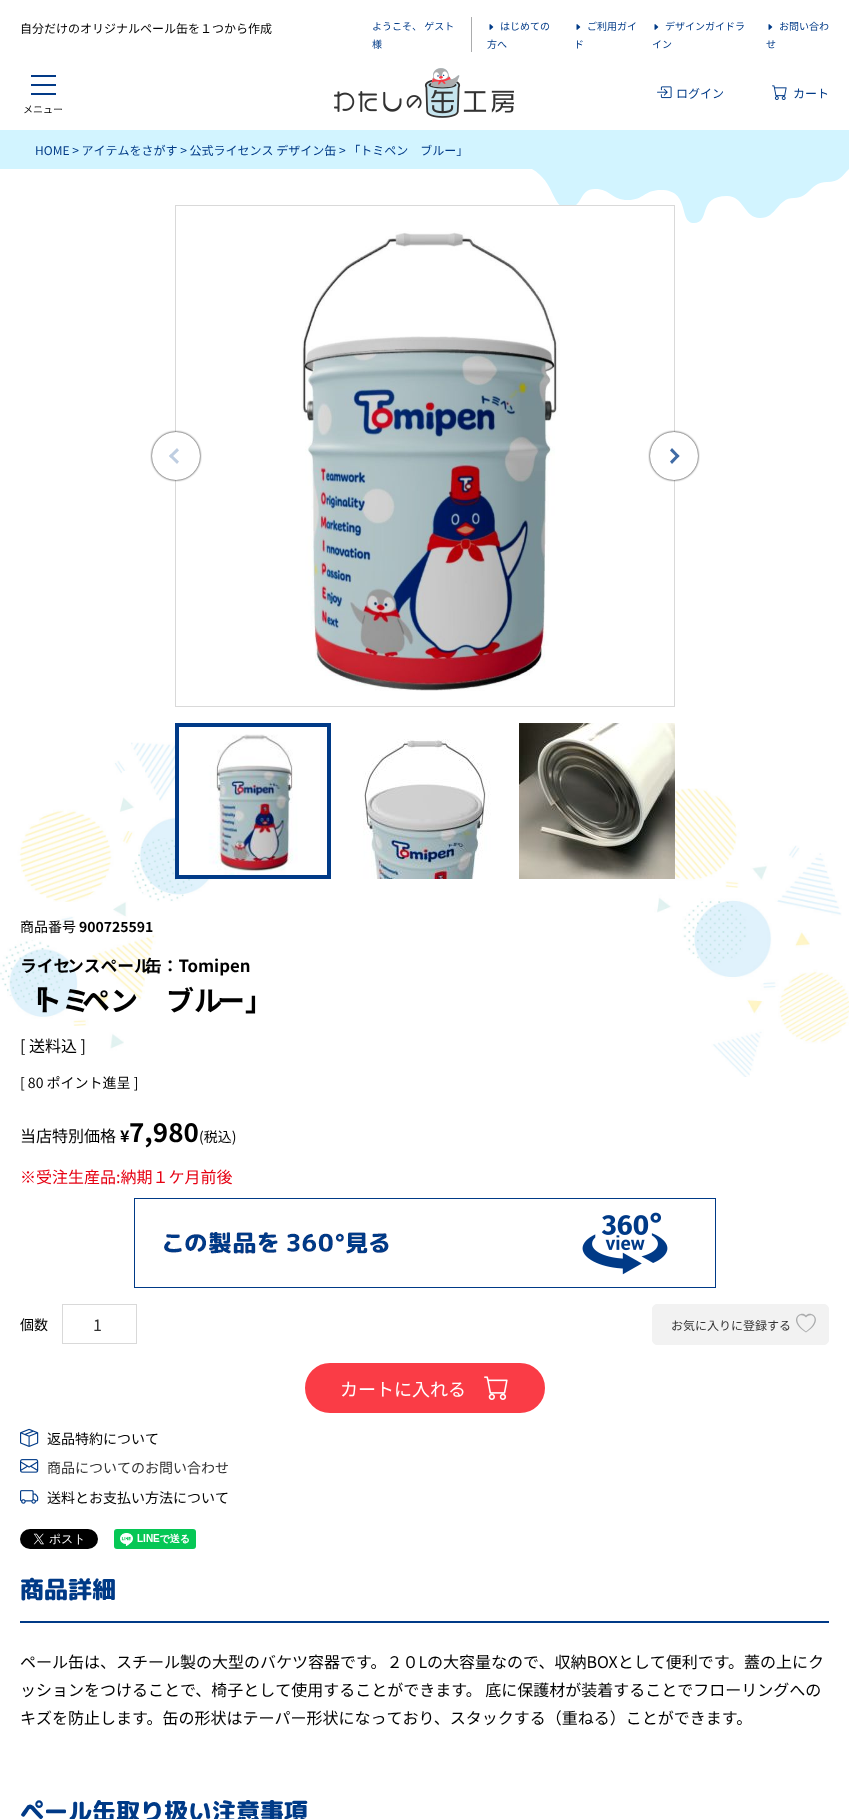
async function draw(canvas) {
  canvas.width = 849;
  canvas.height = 1819;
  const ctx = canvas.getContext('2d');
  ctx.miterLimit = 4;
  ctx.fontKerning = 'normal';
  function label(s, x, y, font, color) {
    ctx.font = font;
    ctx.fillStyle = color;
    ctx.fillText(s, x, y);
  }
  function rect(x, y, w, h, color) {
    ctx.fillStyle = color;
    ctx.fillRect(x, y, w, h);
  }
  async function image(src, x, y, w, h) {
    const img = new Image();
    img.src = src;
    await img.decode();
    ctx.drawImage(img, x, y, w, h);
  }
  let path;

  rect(0, 0, 849, 1819, '#fff');
  label('自分だけのオリジナルペール缶を１つから作成', 20, 33, '12px Noto Sans JP', '#000');
  rect(471, 17, 1, 35, '#abacad');
  label('ようこそ、 ゲスト', 372, 30, '10px Noto Sans JP', '#003a87');
  label('様', 372, 48, '10px Noto Sans JP', '#003a87');
  await image('assets/img1.png', 489, 24, 5, 6);
  label('はじめての', 500, 30, '10px Noto Sans JP', '#003a87');
  label('方へ', 487, 48, '10px Noto Sans JP', '#003a87');
  await image('assets/img1.png', 576, 24, 5, 6);
  label('ご利用ガイ', 587, 30, '10px Noto Sans JP', '#003a87');
  label('ド', 574, 48, '10px Noto Sans JP', '#003a87');
  await image('assets/img1.png', 654, 24, 5, 6);
  label('デザインガイドラ', 665, 30, '10px Noto Sans JP', '#003a87');
  label('イン', 652, 48, '10px Noto Sans JP', '#003a87');
  await image('assets/img1.png', 768, 24, 5, 6);
  label('お問い合わ', 779, 30, '10px Noto Sans JP', '#003a87');
  label('せ', 766, 48, '10px Noto Sans JP', '#003a87');
  await image('assets/img2.png', 334, 68, 180, 50);
  await image('assets/img3.png', 657, 86, 15, 13);
  label('ログイン', 676, 98, '12px Noto Sans JP', '#003a87');
  await image('assets/img4.png', 772, 85, 15, 15);
  label('カート', 793, 98, '12px Noto Sans JP', '#003a87');
  rect(31, 75, 25, 2, '#023a87');
  rect(31, 84, 25, 2, '#023a87');
  rect(31, 93, 25, 2, '#023a87');
  label('メニュー', 23, 113, '10px Noto Sans JP', '#000');
  rect(0, 130, 849, 39, '#d2f4ff');
  label('HOME > アイテムをさがす > 公式ライセンス デザイン缶 > 「トミペン　ブルー」', 35, 155, '12px Noto Sans JP', '#003a87');
  ctx.fillStyle = '#d2f4ff';
  path = new Path2D('M849 169C841 177 839 182 827 182C810 182 810 198 794 198C777 198 777 218 760 218C744 218 744 196 727 196C697 196 711 223 694 223C678 223 691 190 661 190C644 190 644 200 628 200C611 200 611 189 595 189C578 189 584 208 567 208C552 208 555 182 532 169Z');
  ctx.fill(path, 'evenodd');
  ctx.strokeStyle = '#d9d9d9';
  ctx.strokeRect(175.5, 205.5, 499, 501);
  ctx.fillStyle = '#000';
  ctx.filter = 'blur(1px)';
  ctx.beginPath();
  ctx.roundRect(152, 432, 48, 48, 24);
  ctx.fill();
  ctx.filter = 'none';
  ctx.fillStyle = '#fff';
  ctx.beginPath();
  ctx.arc(176, 456, 24, 0, 2 * Math.PI);
  ctx.fill();
  ctx.fillStyle = '#bfcee1';
  path = new Path2D('M169 456L177 448L179 450.5L171 458Z');
  ctx.fill(path);
  path = new Path2D('M169 456L171 454L179 461.5L177 464Z');
  ctx.fill(path);
  await image('assets/img5.png', 301, 206, 274, 485);
  ctx.fillStyle = '#000';
  ctx.filter = 'blur(1px)';
  ctx.beginPath();
  ctx.roundRect(650, 432, 48, 48, 24);
  ctx.fill();
  ctx.filter = 'none';
  ctx.fillStyle = '#fff';
  ctx.beginPath();
  ctx.arc(674, 456, 24, 0, 2 * Math.PI);
  ctx.fill();
  ctx.fillStyle = '#406ba5';
  path = new Path2D('M672 448L679.5 456L677.5 458L670 450.5Z');
  ctx.fill(path);
  path = new Path2D('M677.5 454L679.5 456L672 464L670 461.5Z');
  ctx.fill(path);
  await image('assets/img16.png', 0, 742, 849, 335);
  ctx.strokeStyle = '#003a87';
  ctx.lineWidth = 4;
  ctx.strokeRect(177, 725, 152, 152);
  await image('assets/img6.png', 179, 734, 119, 141);
  await image('assets/img7.png', 363, 739, 128, 140);
  await image('assets/img8.png', 519, 723, 156, 156);
  label('商品番号', 20, 932, '14px Noto Sans JP', '#000');
  label('900725591', 79, 932, 'bold 14px Noto Sans JP', '#000');
  label('ライセ', 20, 972, 'bold 16.75px Noto Sans JP', '#000');
  label('ンスペール', 67, 972, 'bold 16.75px Noto Sans JP', '#000');
  label('缶：Tomipen', 145, 972, 'bold 16.75px Noto Sans JP', '#000');
  label('「', 20, 1011, 'bold 28px Noto Sans JP', '#000');
  label('トミ', 34, 1011, 'bold 28px Noto Sans JP', '#000');
  label('ペン　ブル', 82, 1011, 'bold 28px Noto Sans JP', '#000');
  label('ー」', 217, 1011, 'bold 28px Noto Sans JP', '#000');
  label('[ 送料込 ]', 20, 1052, '16px Noto Sans JP', '#000');
  label('[ 80 ポイント進呈 ]', 20, 1088, '14px Noto Sans JP', '#000');
  label('当店特別価格', 20, 1142, '16px Noto Sans JP', '#000');
  label('¥', 120, 1142, 'bold 16px Noto Sans JP', '#000');
  label('7,980', 129, 1142, 'bold 26px Noto Sans JP', '#000');
  label('(税込)', 199, 1142, '14px Noto Sans JP', '#000');
  label('※受注生産品:納期１ケ月前後', 20, 1183, '16px Noto Sans JP', '#e60012');
  await image('assets/img9.png', 134, 1198, 582, 90);
  label('個数', 20, 1330, '14px Noto Sans JP', '#000');
  ctx.strokeStyle = '#d9d9d9';
  ctx.lineWidth = 1;
  ctx.strokeRect(62.5, 1304.5, 74, 39);
  label('1', 93, 1331, '16px Noto Sans JP', '#323232');
  ctx.fillStyle = '#f2f2f2';
  ctx.beginPath();
  ctx.roundRect(652.5, 1304.5, 176, 40, 4.5);
  ctx.fill();
  ctx.strokeStyle = '#f2f2f2';
  ctx.stroke();
  label('お気に入りに登録する', 671, 1330, '12px Noto Sans JP', '#323232');
  ctx.fillStyle = '#abacad';
  path = new Path2D('M806 1317.5C800 1311 790 1320 806 1331.5C822 1320 812 1311 806 1317.5ZM806 1332.5C786 1319.5 801.5 1309.5 806 1315.5C810.5 1309.5 826 1319.5 806 1332.5Z');
  ctx.fill(path);
  ctx.fillStyle = '#fa3c46';
  ctx.beginPath();
  ctx.roundRect(306, 1364, 238, 48, 24);
  ctx.fill();
  ctx.strokeStyle = '#fa3c46';
  ctx.lineWidth = 2;
  ctx.stroke();
  label('カートに入れる', 340, 1396, '18px Noto Sans JP', '#fff');
  await image('assets/img10.png', 484, 1376, 24, 24);
  await image('assets/img11.png', 20, 1428, 19, 19);
  label('返品特約について', 47, 1444, '14px Noto Sans JP', '#000');
  await image('assets/img12.png', 20, 1459, 19, 14);
  label('商品についてのお問い合わせ', 47, 1473, '14px Noto Sans JP', '#323232');
  await image('assets/img13.png', 20, 1490, 19, 14);
  label('送料とお支払い方法について', 47, 1503, '14px Noto Sans JP', '#000');
  await image('assets/img14.png', 20, 1529, 78, 20);
  await image('assets/img15.png', 114, 1529, 82, 20);
  rect(20, 1621, 809, 2, '#003a87');
  label('商品詳細', 20, 1598, '800 24px "Rounded Mplus 1c"', '#003a87');
  label('ペール缶は、スチール製の大型のバケツ容器です。２０Lの大容量なので、収納BOXとして便利です。蓋の上にク', 20, 1668, '16px Noto Sans JP', '#000');
  label('ッションをつけることで、椅子として使用することができます。 底に保護材が装着することでフローリングへの', 20, 1696, '16px Noto Sans JP', '#000');
  label('キズを防止します。缶の形状はテーパー形状になっており、スタックする（重ねる）ことができます。', 20, 1724, '16px Noto Sans JP', '#000');
  label('ペール缶取り扱い注意事項', 20, 1820, '800 24px "Rounded Mplus 1c"', '#003a87');
}

draw(document.querySelector('canvas'));
